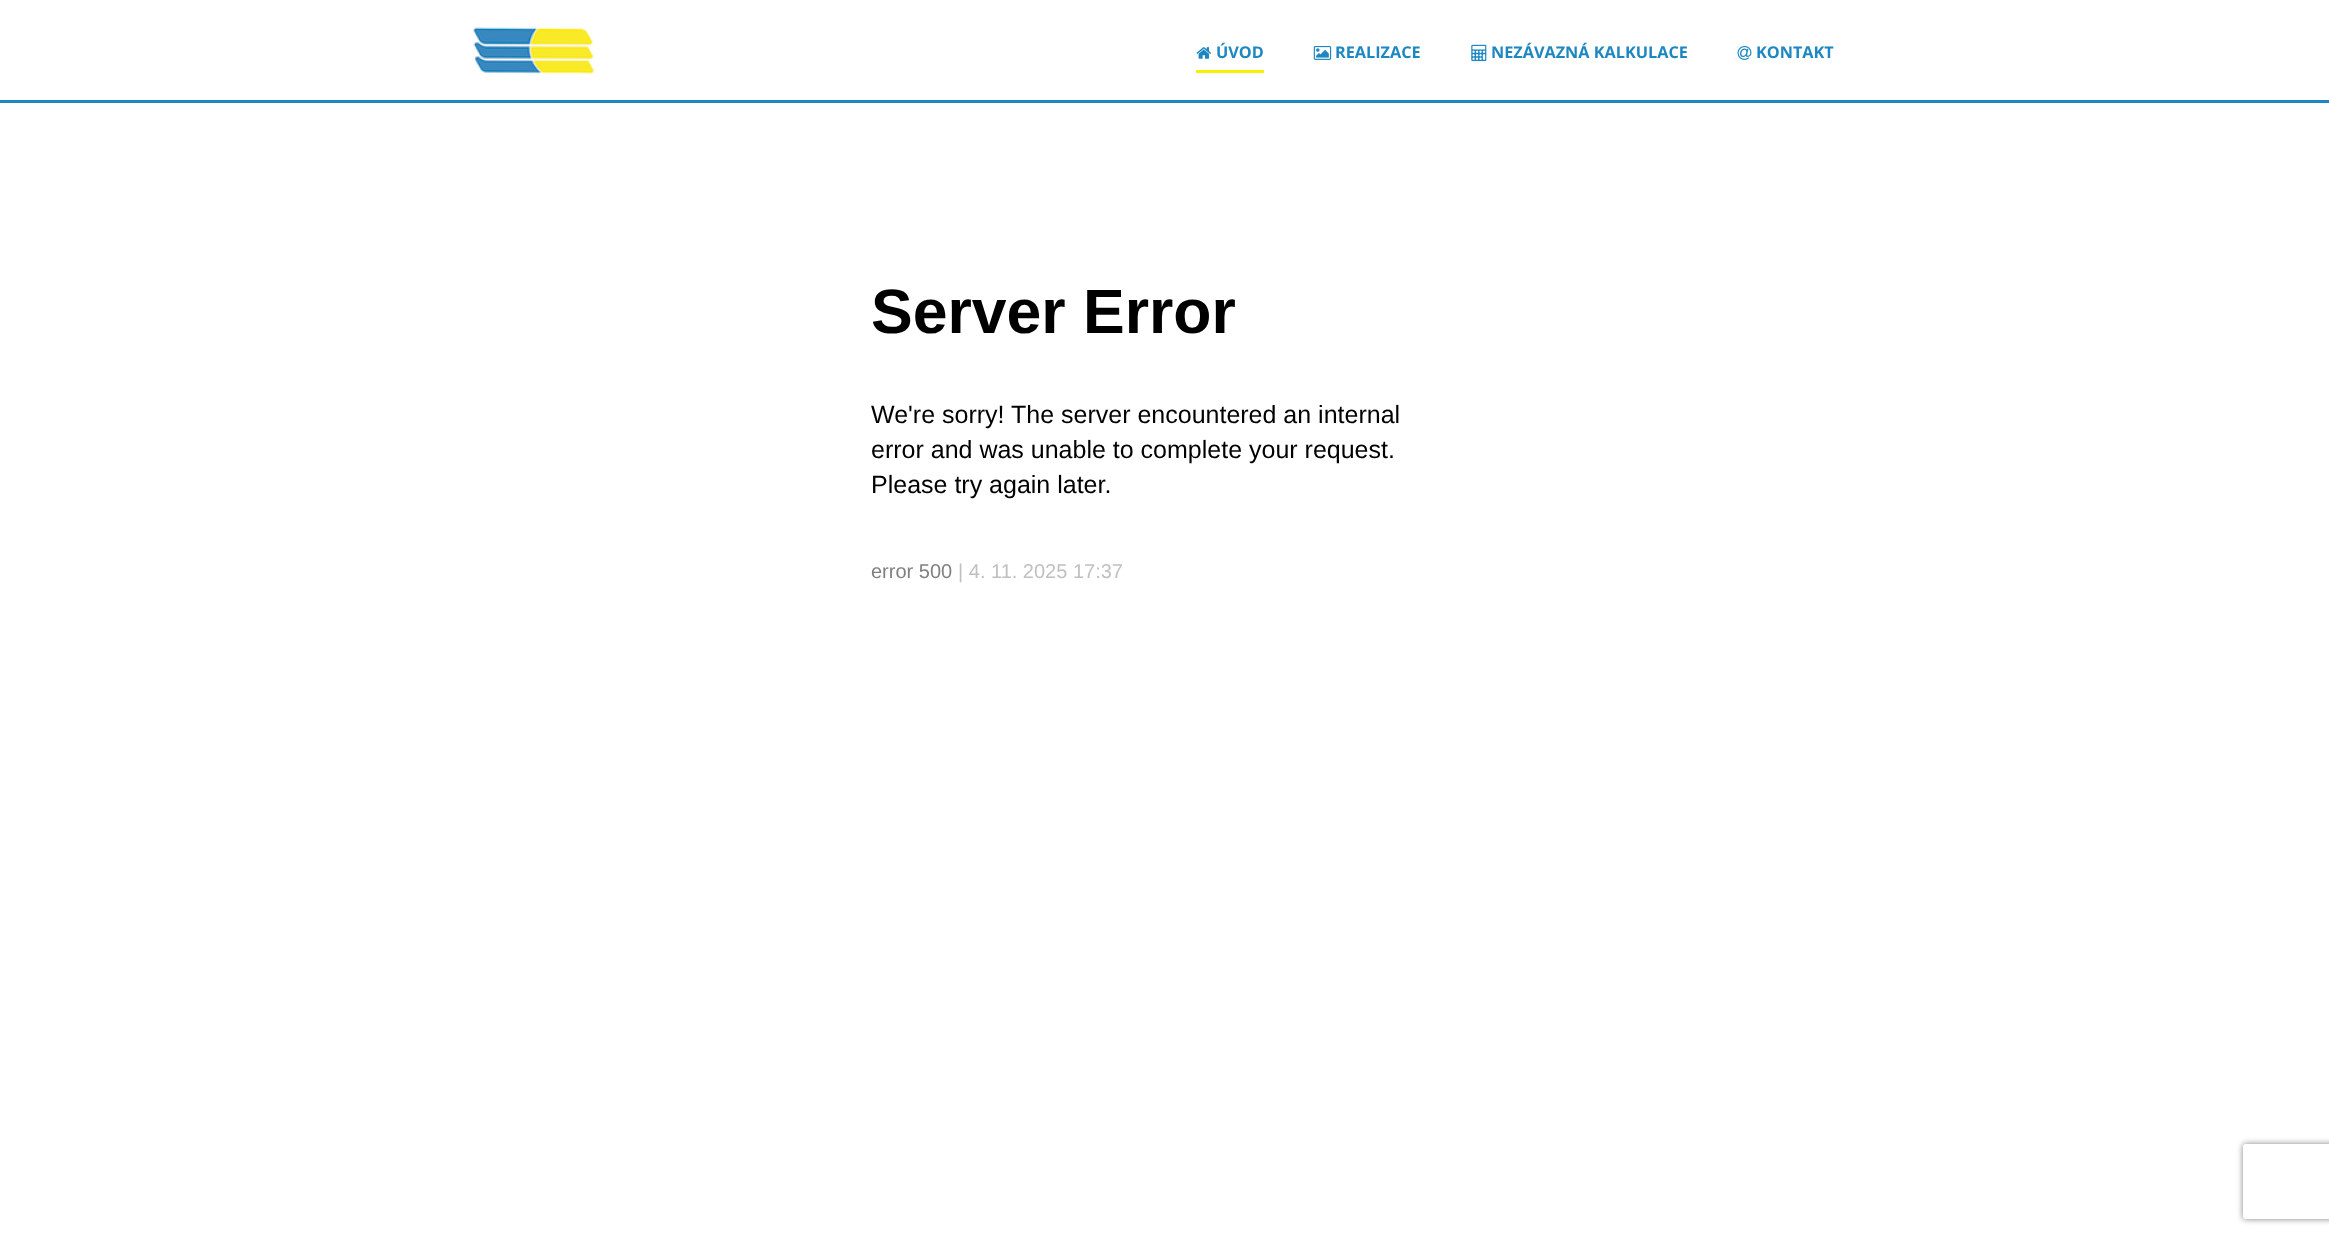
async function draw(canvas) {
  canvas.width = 2329;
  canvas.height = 1236;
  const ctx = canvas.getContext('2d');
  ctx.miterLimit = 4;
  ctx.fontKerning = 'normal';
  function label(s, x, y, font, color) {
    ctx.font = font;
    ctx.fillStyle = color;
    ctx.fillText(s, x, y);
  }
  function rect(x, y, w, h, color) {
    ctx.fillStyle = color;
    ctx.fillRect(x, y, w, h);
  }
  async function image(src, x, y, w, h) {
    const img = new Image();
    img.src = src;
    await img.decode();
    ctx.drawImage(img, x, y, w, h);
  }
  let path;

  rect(0, 0, 2329, 1236, '#fff');
  rect(0, 100, 2329, 3, '#1e87c2');
  await image('assets/img1.png', 472, 27, 122, 47);
  rect(1196, 70, 68, 3, '#f7f100');
  await image('assets/img2.png', 1196, 47, 15, 12);
  label('ÚVOD', 1216, 58, 'bold 16.25px Open Sans', '#1e87c2');
  await image('assets/img3.png', 1313, 46, 19, 14);
  label('REALIZACE', 1335, 58, 'bold 16.25px Open Sans', '#1e87c2');
  await image('assets/img4.png', 1471, 44, 16, 18);
  label('NEZÁVAZNÁ KALKULACE', 1491, 58, 'bold 16.25px Open Sans', '#1e87c2');
  await image('assets/img5.png', 1737, 46, 15, 14);
  label('KONTAKT', 1756, 58, 'bold 16.25px Open Sans', '#1e87c2');
  label('Server Error', 871, 333, 'bold 62.5px Liberation Sans', '#000');
  label('We\'re sorry! The server encountered an internal', 871, 423, '25px Liberation Sans', '#000');
  label('error and was unable to complete your request.', 871, 458, '25px Liberation Sans', '#000');
  label('Please try again later.', 871, 493, '25px Liberation Sans', '#000');
  label('error 500', 871, 578, '20px Liberation Sans', '#808080');
  label('| 4. 11. 2025 17:37', 958, 578, '20px Liberation Sans', '#c0c0c0');
  ctx.save();
  path = new Path2D('M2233 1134H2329V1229H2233ZM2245.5 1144H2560.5C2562 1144 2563 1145 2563 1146.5V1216.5C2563 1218 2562 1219 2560.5 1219H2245.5C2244 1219 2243 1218 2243 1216.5V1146.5C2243 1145 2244 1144 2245.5 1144Z');
  ctx.clip(path, 'evenodd');
  ctx.fillStyle = '#808080';
  ctx.filter = 'blur(3px)';
  ctx.beginPath();
  ctx.roundRect(2243, 1144, 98, 75, 2.5);
  ctx.fill();
  ctx.filter = 'none';
  ctx.restore();
}

draw(document.querySelector('canvas'));
